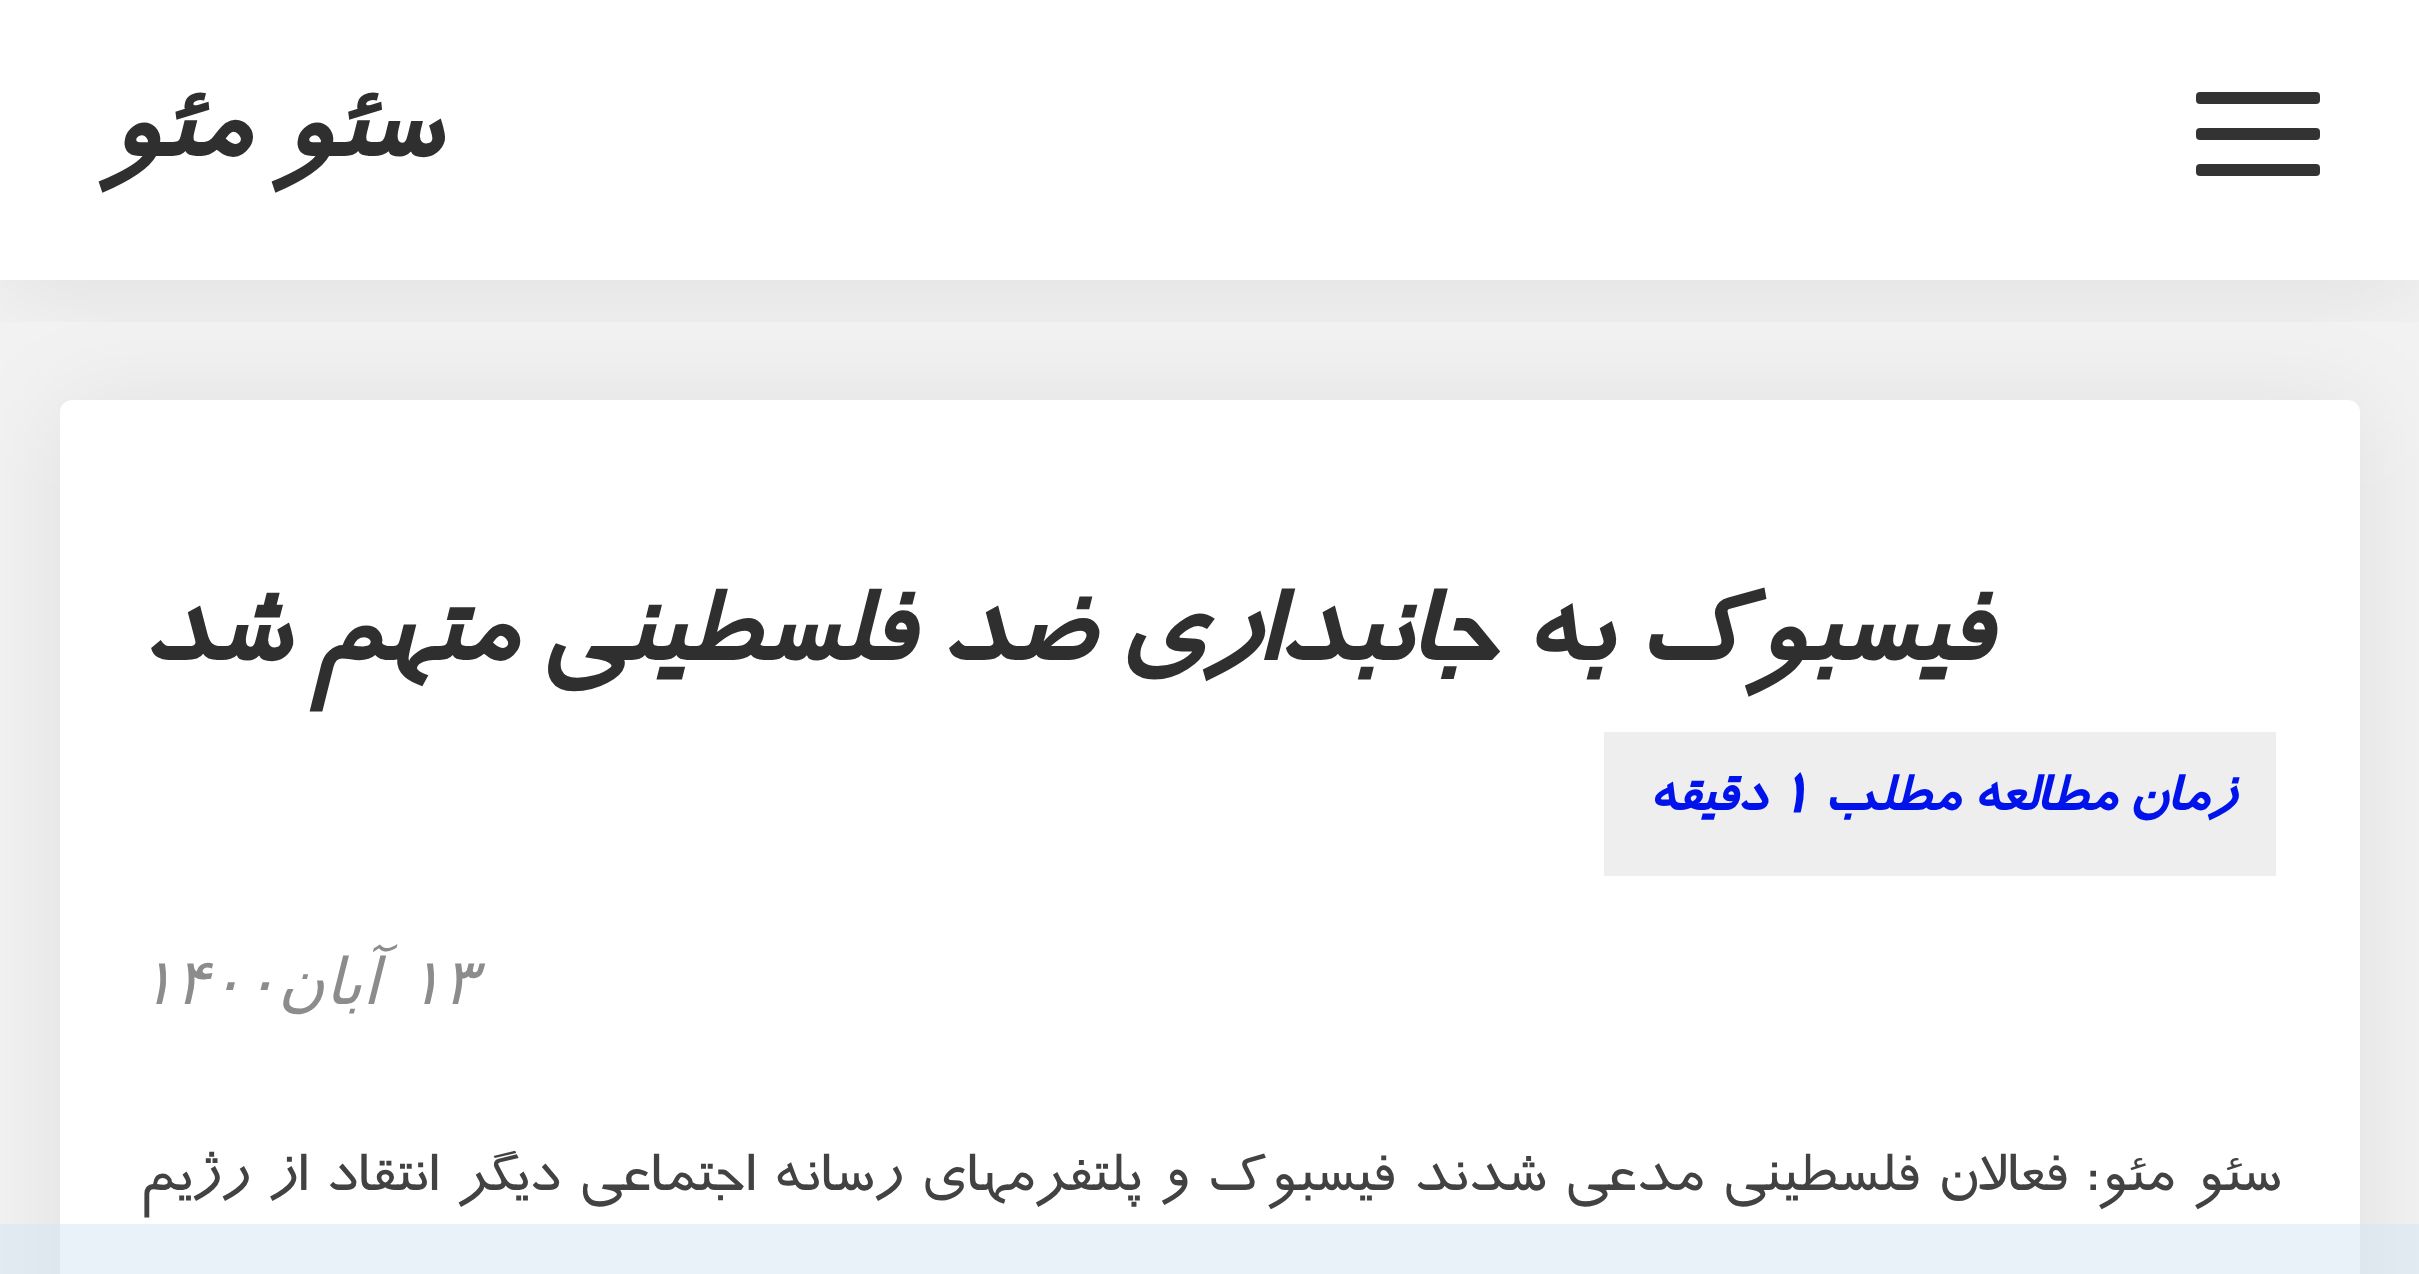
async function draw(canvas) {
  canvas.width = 2419;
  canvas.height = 1274;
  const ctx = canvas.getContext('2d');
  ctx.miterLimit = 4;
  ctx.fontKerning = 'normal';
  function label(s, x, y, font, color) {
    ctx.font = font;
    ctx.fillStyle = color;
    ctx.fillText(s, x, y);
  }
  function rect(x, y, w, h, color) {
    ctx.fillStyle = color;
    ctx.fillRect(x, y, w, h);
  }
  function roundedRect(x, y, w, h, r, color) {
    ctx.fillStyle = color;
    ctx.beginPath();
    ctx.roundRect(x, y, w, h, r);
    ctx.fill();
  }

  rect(0, 0, 2419, 1274, '#f2f2f2');
  ctx.fillStyle = '#00000014';
  ctx.filter = 'blur(50px)';
  ctx.beginPath();
  ctx.roundRect(60, 408, 2300, 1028, 12);
  ctx.fill();
  ctx.filter = 'none';
  rect(0, 0, 2419, 280, '#fff');
  roundedRect(60, 400, 2300, 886, 12, '#fff');
  ctx.save();
  ctx.beginPath();
  ctx.rect(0, 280, 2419, 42);
  ctx.clip();
  ctx.fillStyle = '#00000014';
  ctx.filter = 'blur(50px)';
  ctx.beginPath();
  ctx.rect(0, 8, 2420, 280);
  ctx.fill();
  ctx.filter = 'none';
  ctx.restore();
  roundedRect(2196, 92, 124, 12, 4, '#333');
  roundedRect(2196, 128, 124, 12, 4, '#333');
  roundedRect(2196, 164, 124, 12, 4, '#333');
  ctx.direction = 'rtl';
  label('سئو مئو', 438, 156, 'italic bold 120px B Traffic', '#2f2f2f');
  label('فیسبوک به جانبداری ضد فلسطینی متهم شد', 1988, 660, 'italic bold 120px B Traffic', '#2f2f2f');
  rect(1604, 732, 672, 144, '#eee');
  label('زمان مطالعه مطلب', 2234, 810, 'italic bold 60px B Traffic', '#0013ea');
  ctx.direction = 'ltr';
  label('1', 1779, 810, 'italic bold 60px B Traffic', '#0013ea');
  ctx.direction = 'rtl';
  label('دقیقه', 1765, 810, 'italic bold 60px B Traffic', '#0013ea');
  ctx.direction = 'ltr';
  label('۱۳', 408, 1004, 'italic 64px DejaVu Sans', '#8c8c8c');
  ctx.direction = 'rtl';
  label('آبان', 380, 1004, 'italic 64px DejaVu Sans', '#8c8c8c');
  ctx.direction = 'ltr';
  label('۱۴۰۰', 140, 1004, 'italic 64px DejaVu Sans', '#8c8c8c');
  ctx.save();
  ctx.beginPath();
  ctx.rect(140, 1132, 2140, 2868);
  ctx.clip();
  ctx.wordSpacing = '4px';
  ctx.direction = 'rtl';
  label('سئو مئو: فعالان فلسطینی مدعی شدند فیسبوک و پلتفرمهای رسانه اجتماعی دیگر انتقاد از رژیم', 2280, 1190, '64px B Traffic', '#424242');
  ctx.restore();
  rect(0, 1224, 2419, 50, '#d2e5f280');
}

draw(document.querySelector('canvas'));
